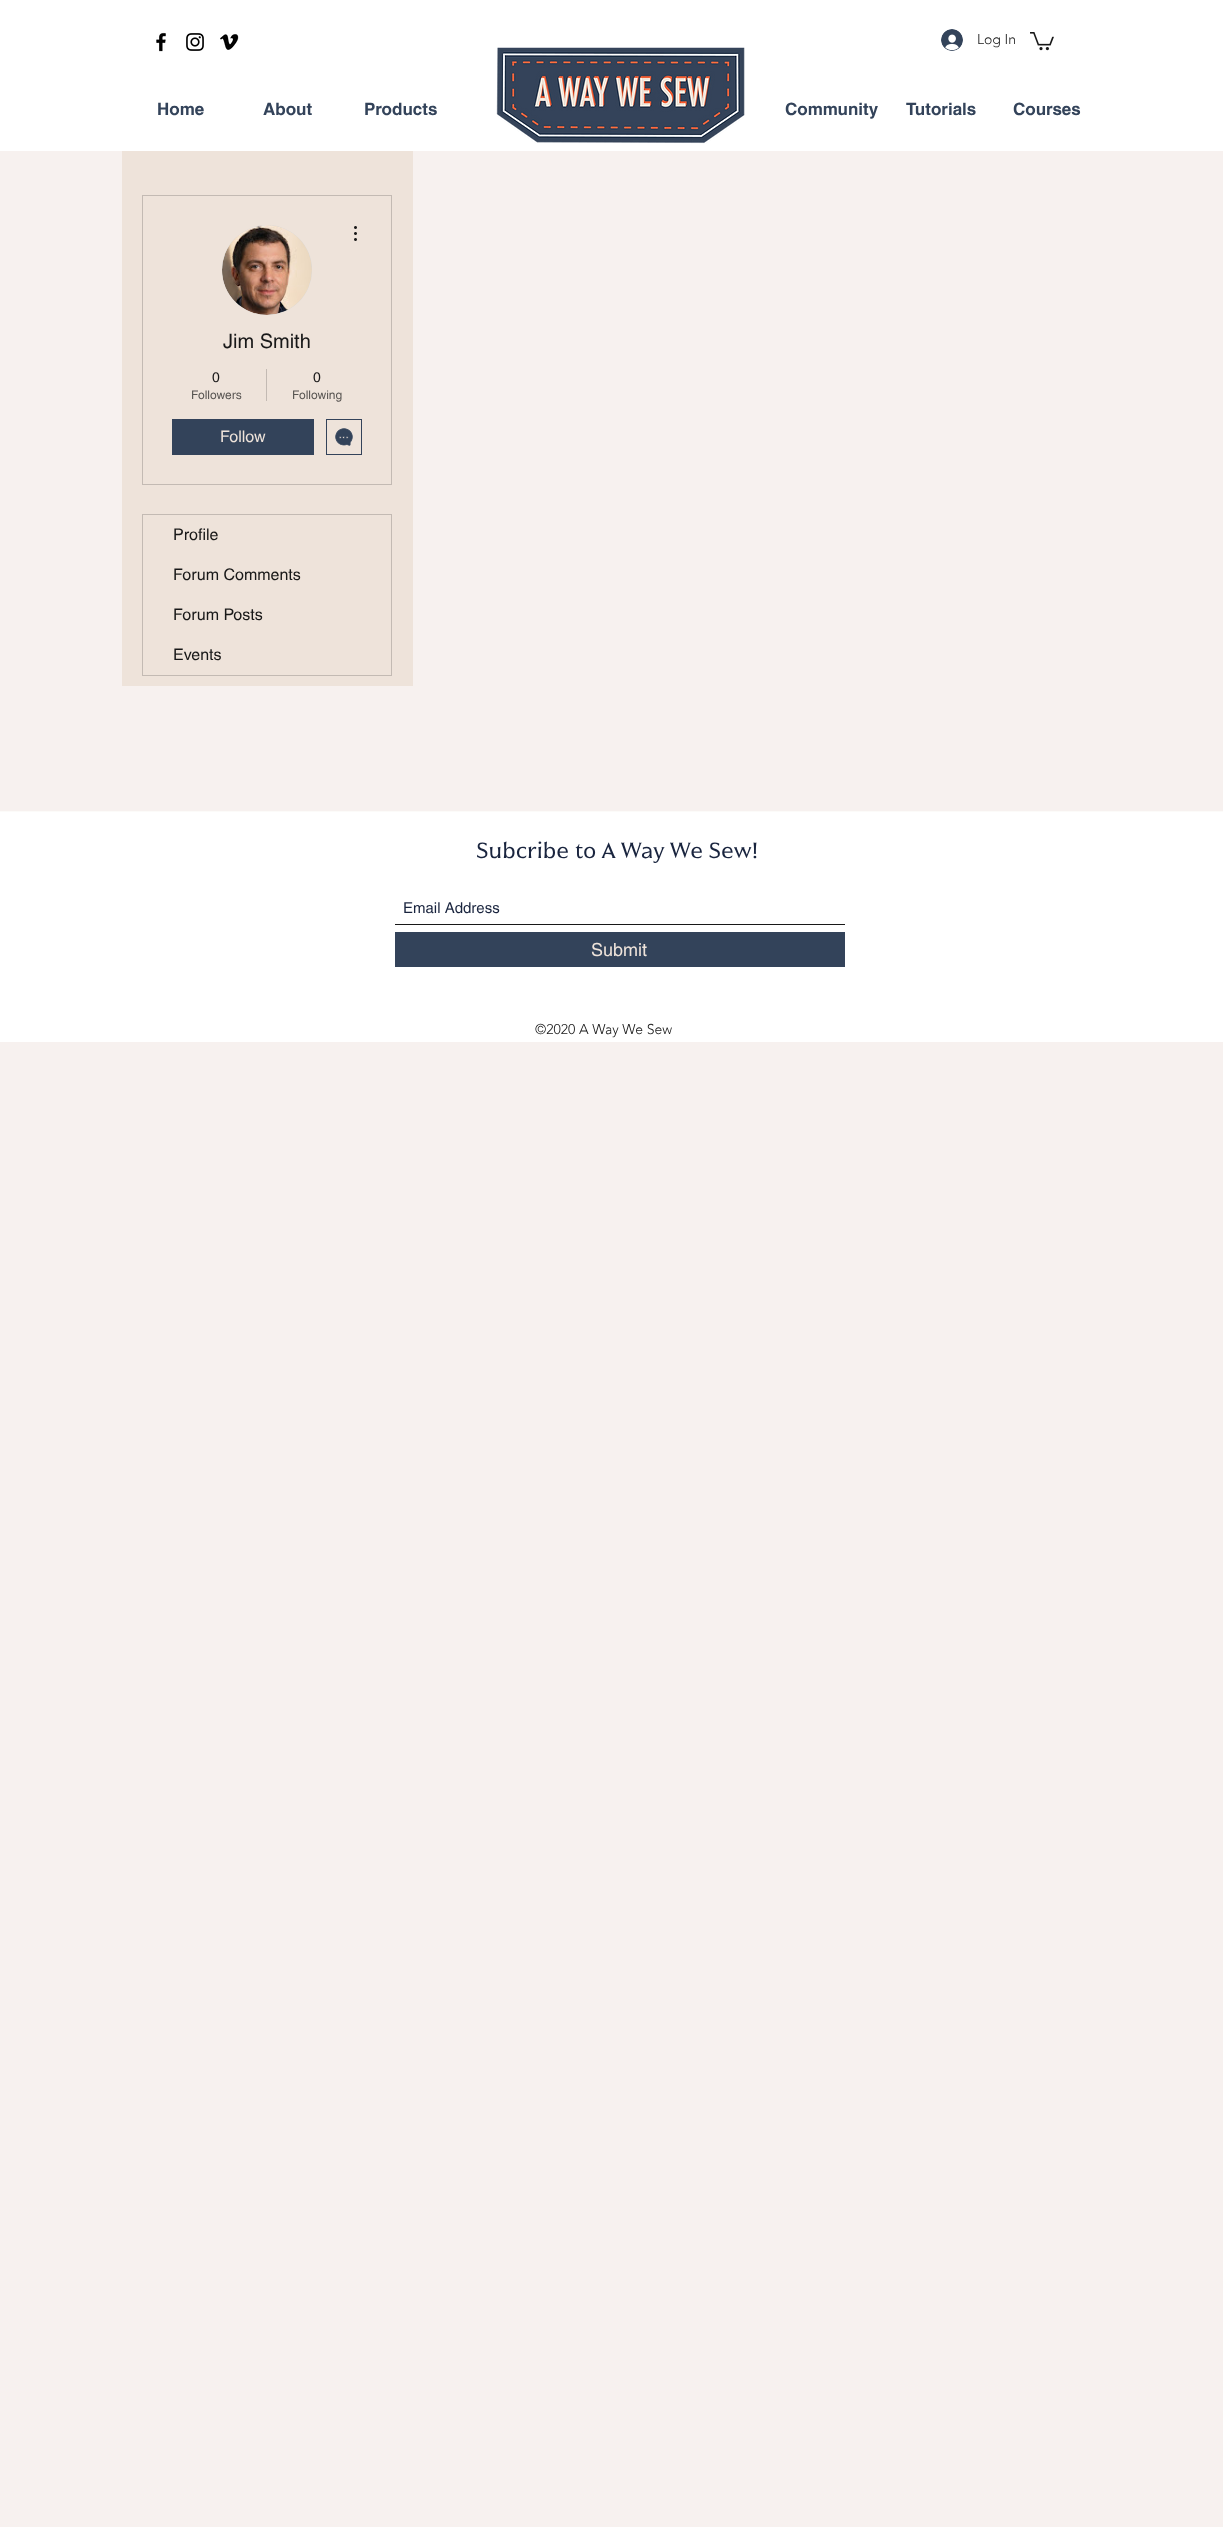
async function draw(canvas) {
  canvas.width = 1223;
  canvas.height = 2527;
  const ctx = canvas.getContext('2d');
  ctx.miterLimit = 4;
  ctx.fontKerning = 'normal';
  function label(s, x, y, font, color) {
    ctx.font = font;
    ctx.fillStyle = color;
    ctx.fillText(s, x, y);
  }
  function rect(x, y, w, h, color) {
    ctx.fillStyle = color;
    ctx.fillRect(x, y, w, h);
  }
  async function image(src, x, y, w, h) {
    const img = new Image();
    img.src = src;
    await img.decode();
    ctx.drawImage(img, x, y, w, h);
  }

  rect(0, 0, 1223, 2527, '#f7f1ef');
  rect(0, 0, 1223, 151, '#fff');
  await image('assets/img1.png', 156, 32, 10, 20);
  await image('assets/img2.png', 186, 33, 18, 18);
  await image('assets/img3.png', 220, 34, 19, 16);
  await image('assets/img4.png', 941, 29, 22, 22);
  label('Log In', 977, 44, '300 14px "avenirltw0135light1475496"', '#181818');
  await image('assets/img5.png', 1030, 32, 24, 19);
  label('Home', 157, 115, 'bold 17px helvetica', '#33435a');
  label('About', 263, 115, 'bold 17px helvetica', '#33435a');
  label('Products', 364, 115, 'bold 17px helvetica', '#33435a');
  await image('assets/img6.png', 496, 47, 249, 97);
  label('Community', 785, 115, 'bold 17px helvetica', '#33435a');
  label('Tutorials', 906, 115, 'bold 17px helvetica', '#33435a');
  label('Courses', 1013, 115, 'bold 17px helvetica', '#33435a');
  rect(122, 151, 291, 535, '#eee3da');
  ctx.strokeStyle = '#c3bab3';
  ctx.strokeRect(142.5, 195.5, 249, 289);
  ctx.fillStyle = '#d8d8d8';
  ctx.beginPath();
  ctx.arc(267, 270, 45, 0, 2 * Math.PI);
  ctx.fill();
  await image('assets/img7.png', 222, 225, 90, 90);
  await image('assets/img8.png', 354, 226, 3, 15);
  label('Jim Smith', 223, 348, '20px helvetica', '#181818');
  label('0', 212, 382, '14px helvetica', '#181818');
  label('Followers', 191, 399, '12px helvetica', '#585552');
  rect(266, 369, 1, 32, '#c3bab3');
  label('0', 313, 382, '14px helvetica', '#181818');
  label('Following', 292, 399, '12px helvetica', '#585552');
  rect(172, 419, 142, 36, '#33435a');
  label('Follow', 220, 442, '16px helvetica', '#eee3da');
  ctx.strokeStyle = '#33435a';
  ctx.strokeRect(326.5, 419.5, 35, 35);
  await image('assets/img9.png', 335, 428, 18, 18);
  ctx.strokeStyle = '#c3bab3';
  ctx.strokeRect(142.5, 514.5, 249, 161);
  label('Profile', 173, 540, '16px helvetica', '#181818');
  label('Forum Comments', 173, 580, '16px helvetica', '#181818');
  label('Forum Posts', 173, 620, '16px helvetica', '#181818');
  label('Events', 173, 660, '16px helvetica', '#181818');
  rect(0, 812, 1223, 230, '#fff');
  rect(0, 811, 1223, 1, '#fcfbf9');
  label('Subcribe to A Way We Sew!', 476, 858, '600 22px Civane', '#19243e');
  rect(395, 924, 450, 1, '#181818');
  label('Email Address', 403, 913, '15px helvetica', '#19243e');
  rect(395, 932, 450, 35, '#33435a');
  label('Submit', 591, 956, '18px helvetica', '#eee3da');
  label('©2020 A Way We Sew', 535, 1034, '300 14px "avenirltw0135light1475496"', '#181818');
}

draw(document.querySelector('canvas'));
